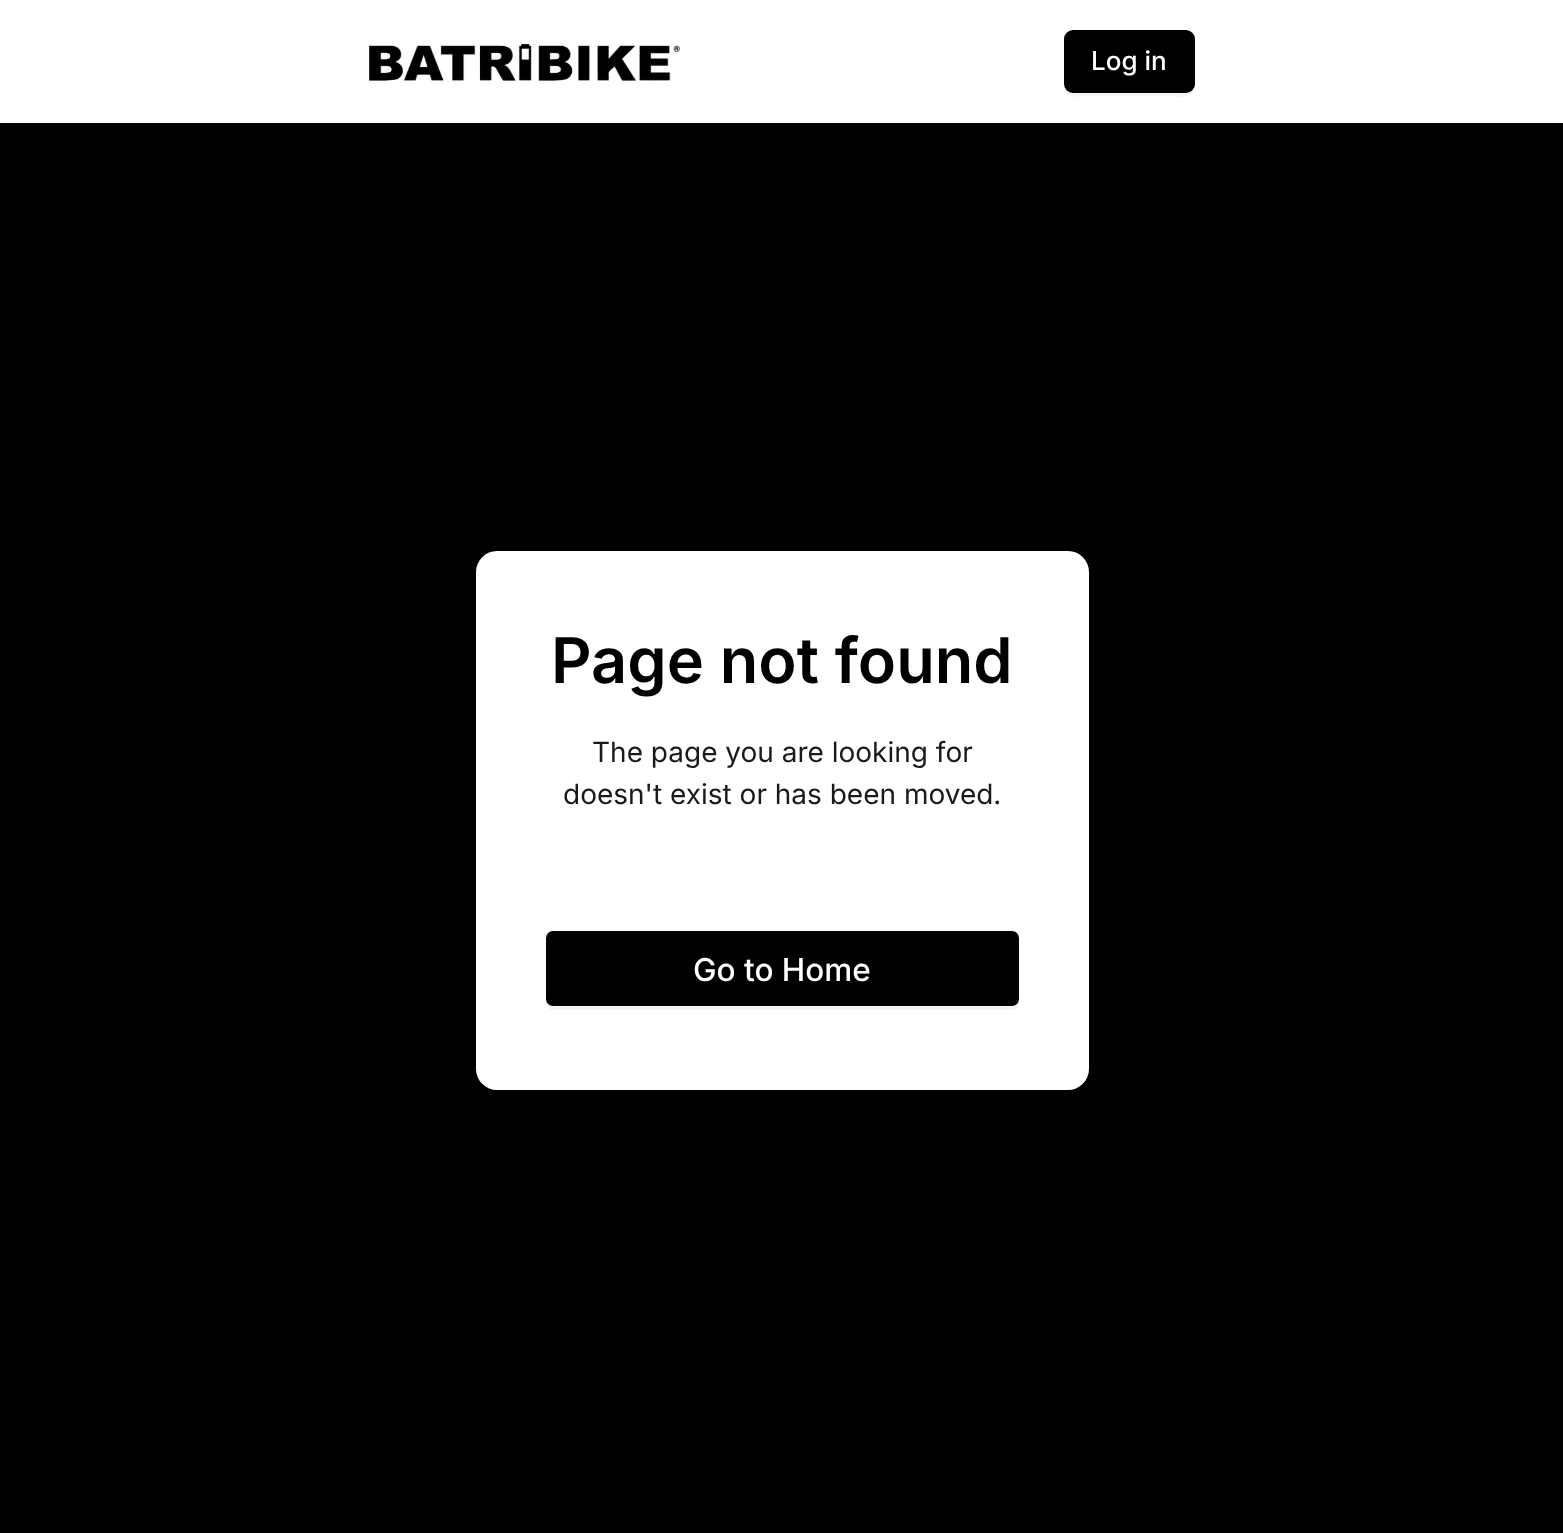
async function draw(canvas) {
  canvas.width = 1563;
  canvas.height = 1533;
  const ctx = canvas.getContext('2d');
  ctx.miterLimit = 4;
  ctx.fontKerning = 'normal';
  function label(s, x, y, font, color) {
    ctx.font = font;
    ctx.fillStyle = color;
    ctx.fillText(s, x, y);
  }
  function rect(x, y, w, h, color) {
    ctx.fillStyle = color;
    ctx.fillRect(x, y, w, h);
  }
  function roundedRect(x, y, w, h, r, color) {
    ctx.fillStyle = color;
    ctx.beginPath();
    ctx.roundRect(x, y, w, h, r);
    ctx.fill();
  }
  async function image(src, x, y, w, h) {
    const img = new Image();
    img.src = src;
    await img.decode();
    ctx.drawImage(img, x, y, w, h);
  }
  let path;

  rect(0, 0, 1563, 1533, '#fff');
  await image('assets/img1.png', 369, 43, 311, 38);
  ctx.fillStyle = '#f5f6f7';
  path = new Path2D('M1064 84C1064 101 1078 96 1092 96H1167C1176 96 1195 101 1195 86C1194 90 1191 93 1186 93H1073C1068 93 1064 89 1064 84Z');
  ctx.fill(path);
  roundedRect(1064, 30, 131, 63, 9, '#000');
  label('Log in', 1091, 70, '500 26px Inter', '#fff');
  rect(0, 123, 1563, 1410, '#000');
  roundedRect(476, 551, 613, 539, 21, '#fff');
  label('Page not found', 551, 683, '600 63px Inter', '#000');
  label('The page you are looking for', 592, 762, '28px Inter', '#1a1a1a');
  label('doesn\'t exist or has been moved.', 563, 804, '28px Inter', '#1a1a1a');
  ctx.fillStyle = '#f4f4f4';
  path = new Path2D('M546 999V1003C546 1007 549 1010 553 1010H1012C1016 1010 1019 1007 1019 1003V942L1018 939V999C1018 1003 1015 1006 1012 1006H553C549 1006 546 1003 546 999Z');
  ctx.fill(path);
  roundedRect(546, 931, 473, 75, 7, '#000');
  label('Go to Home', 693, 981, '500 31.5px Inter', '#fff');
}

draw(document.querySelector('canvas'));
